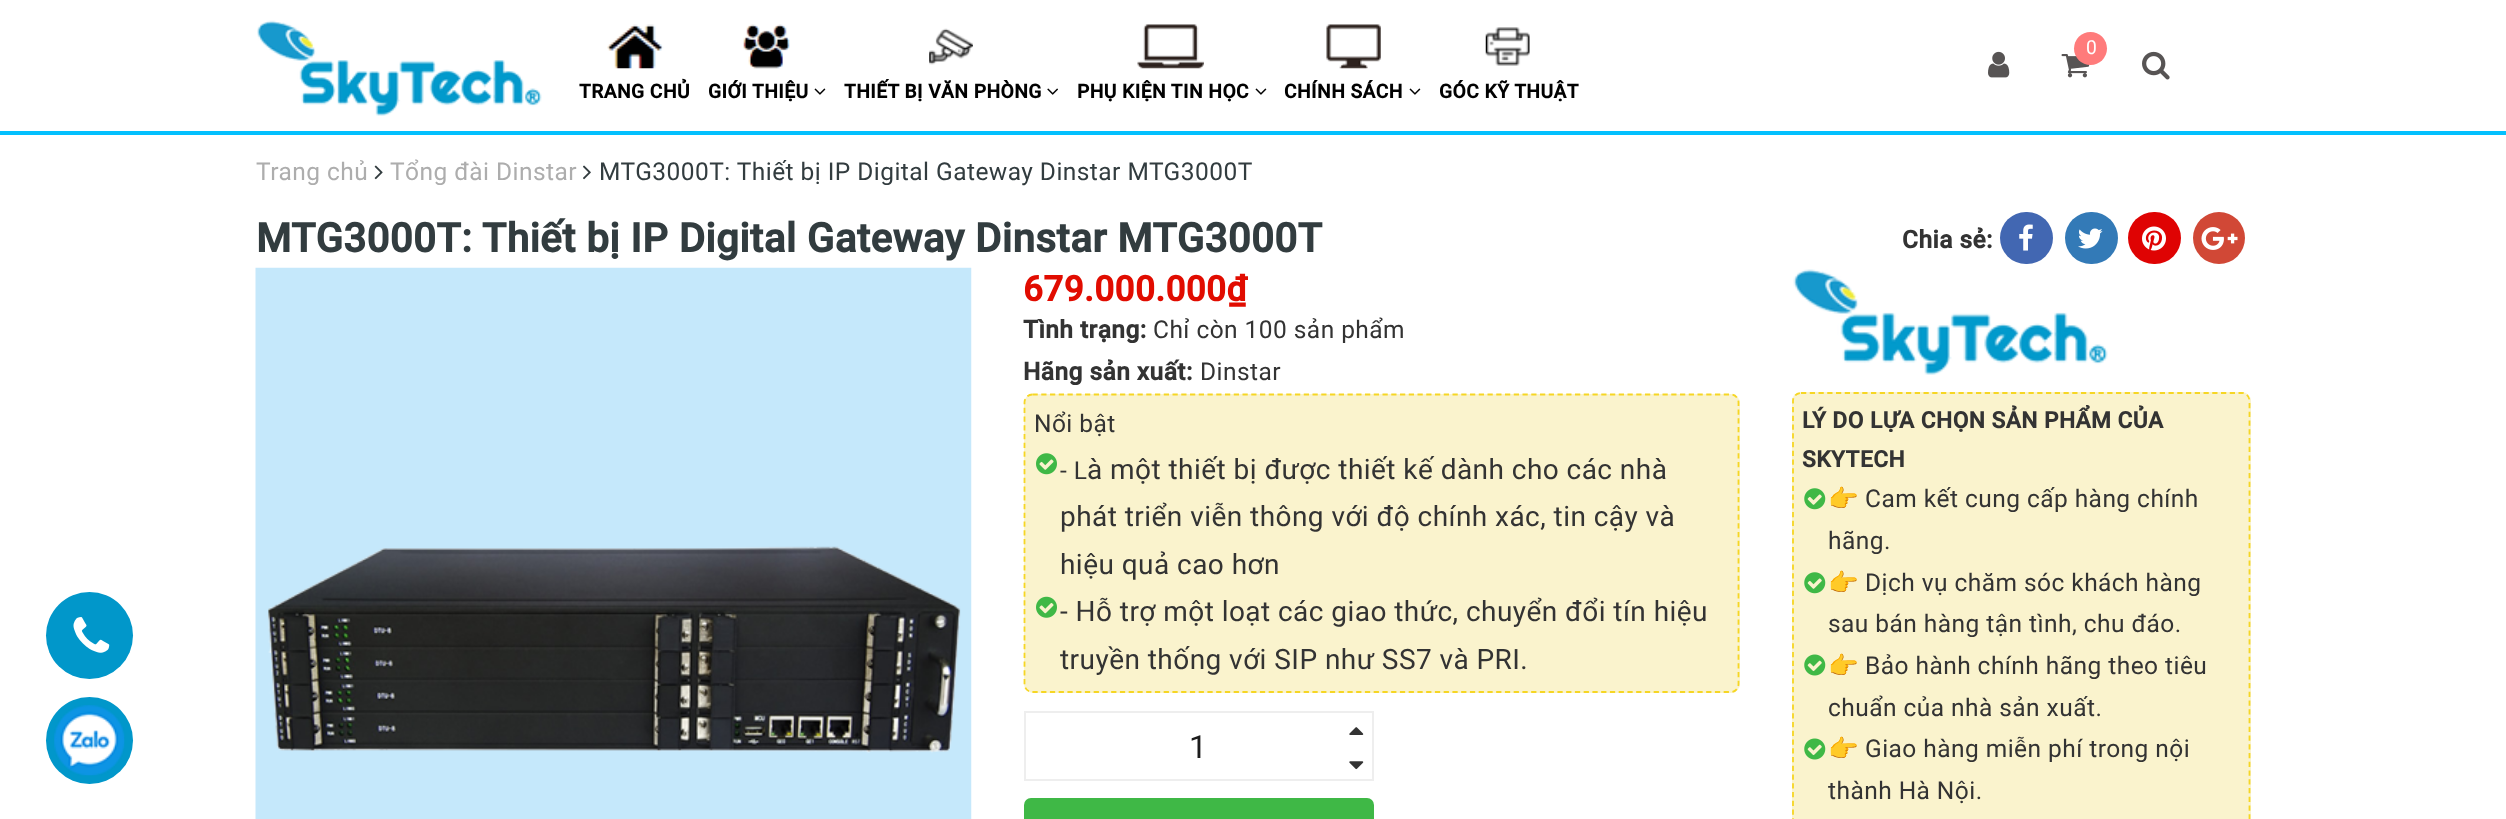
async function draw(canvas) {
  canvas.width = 2506;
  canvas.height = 819;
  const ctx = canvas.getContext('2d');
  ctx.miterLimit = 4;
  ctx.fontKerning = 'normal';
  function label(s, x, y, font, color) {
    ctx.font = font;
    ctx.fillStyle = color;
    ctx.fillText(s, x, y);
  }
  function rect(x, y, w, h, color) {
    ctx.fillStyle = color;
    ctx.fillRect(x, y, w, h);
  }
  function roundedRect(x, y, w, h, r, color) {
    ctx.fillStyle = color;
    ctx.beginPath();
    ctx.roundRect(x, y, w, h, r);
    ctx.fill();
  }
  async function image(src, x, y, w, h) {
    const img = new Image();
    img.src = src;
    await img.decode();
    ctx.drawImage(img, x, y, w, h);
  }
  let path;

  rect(0, 0, 2506, 819, '#fff');
  rect(0, 131, 2506, 4, '#03c0fe');
  await image('assets/img1.png', 257, 20, 285, 96);
  await image('assets/img2.png', 2061, 54, 29, 24);
  ctx.fillStyle = '#ff7b7b';
  ctx.beginPath();
  ctx.arc(2090.5, 48.5, 16.5, 0, 2 * Math.PI);
  ctx.fill();
  ctx.letterSpacing = '0.45px';
  label('0', 2086, 54, '19.25px Roboto', '#fff');
  await image('assets/img3.png', 1988, 51, 22, 27);
  await image('assets/img4.png', 2142, 51, 28, 29);
  await image('assets/img5.png', 607, 24, 57, 45);
  label('TRANG CHỦ', 579, 98, 'bold 19.25px Roboto', '#010101');
  await image('assets/img6.png', 743, 24, 47, 45);
  label('GIỚI THIỆU', 708, 98, 'bold 19.25px Roboto', '#010101');
  await image('assets/img7.png', 814, 88, 12, 7);
  await image('assets/img8.png', 929, 28, 44, 37);
  label('THIẾT BỊ VĂN PHÒNG', 844, 98, 'bold 19.25px Roboto', '#010101');
  await image('assets/img9.png', 1047, 88, 11, 7);
  await image('assets/img10.png', 1137, 24, 67, 45);
  label('PHỤ KIỆN TIN HỌC', 1077, 98, 'bold 19.25px Roboto', '#010101');
  await image('assets/img7.png', 1255, 88, 12, 7);
  await image('assets/img11.png', 1326, 24, 55, 45);
  label('CHÍNH SÁCH', 1284, 98, 'bold 19.25px Roboto', '#010101');
  await image('assets/img7.png', 1409, 88, 12, 7);
  await image('assets/img12.png', 1485, 27, 45, 39);
  label('GÓC KỸ THUẬT', 1439, 98, 'bold 19.25px Roboto', '#010101');
  label('Trang chủ', 256, 180, '24.5px Roboto', '#adadad');
  await image('assets/img13.png', 374, 165, 9, 15);
  label('Tổng đài Dinstar', 390, 180, '24.5px Roboto', '#adadad');
  await image('assets/img14.png', 583, 165, 8, 15);
  label('MTG3000T: Thiết bị IP Digital Gateway Dinstar MTG3000T', 599, 180, '24.5px Roboto', '#323c3f');
  ctx.fillStyle = '#0197ca';
  ctx.beginPath();
  ctx.arc(89.5, 635.5, 43.5, 0, 2 * Math.PI);
  ctx.fill();
  await image('assets/img15.png', 73, 617, 37, 36);
  ctx.letterSpacing = '0.4px';
  label('MTG3000T: Thiết bị IP Digital Gateway Dinstar MTG3000T', 256, 252, 'bold 40.25px Roboto', '#323c3f');
  ctx.letterSpacing = '0.45px';
  label('Chia sẻ:', 1902, 248, 'bold 24.5px Roboto', '#333');
  roundedRect(2000, 212, 53, 52, 26, '#4267b2');
  await image('assets/img16.png', 2019, 224, 14, 27);
  roundedRect(2065, 212, 53, 52, 26, '#337ab7');
  await image('assets/img17.png', 2078, 228, 25, 21);
  roundedRect(2128, 212, 53, 52, 26, '#df0303');
  await image('assets/img18.png', 2142, 226, 24, 25);
  ctx.fillStyle = '#d14836';
  ctx.beginPath();
  ctx.arc(2219, 238, 26, 0, 2 * Math.PI);
  ctx.fill();
  await image('assets/img19.png', 2201, 227, 37, 23);
  await image('assets/img20.png', 255, 267, 717, 552);
  label('679.000.000₫', 1023, 301, 'bold 35px Roboto', '#e10c00');
  label('Tình trạng:', 1023, 338, 'bold 24.5px Roboto', '#333');
  label('Chỉ còn 100 sản phẩm', 1153, 338, '24.5px Roboto', '#333');
  label('Hãng sản xuất:', 1023, 380, 'bold 24.5px Roboto', '#333');
  label('Dinstar', 1200, 380, '24.5px Roboto', '#333');
  roundedRect(1024, 394, 716, 299, 9, '#faf3cd');
  path = new Path2D('M1032.5 394.5H1731C1735 394.5 1738.5 398 1738.5 402.5V684C1738.5 688.5 1735 692 1731 692H1032.5C1028 692 1024.5 688.5 1024.5 684V402.5C1024.5 398 1028 394.5 1032.5 394.5Z');
  ctx.strokeStyle = '#f6d624';
  ctx.lineWidth = 1.8;
  ctx.setLineDash([5.25, 3.5]);
  ctx.stroke(path);
  label('Nổi bật', 1034, 432, '24.5px Roboto', '#333');
  await image('assets/img21.png', 1036, 453, 21, 22);
  label('- L', 1060, 479, '24.5px Roboto', '#333');
  label('à một thiết bị được thiết kế dành cho các nhà', 1087, 479, '28px Roboto', '#333');
  label('phát triển viễn thông với độ chính xác, tin cậy và', 1060, 526, '28px Roboto', '#333');
  label('hiệu quả cao hơn', 1060, 574, '28px Roboto', '#333');
  await image('assets/img22.png', 1036, 596, 21, 22);
  label('- Hỗ trợ một loạt các giao thức, chuyển đổi tín hiệu', 1060, 621, '28px Roboto', '#333');
  label('truyền thống với SIP như SS7 và PRI.', 1060, 669, '28px Roboto', '#333');
  ctx.strokeStyle = '#eee';
  ctx.lineWidth = 2;
  ctx.setLineDash([]);
  ctx.strokeRect(1025, 712, 348, 68);
  await image('assets/img23.png', 1349, 727, 15, 8);
  label('1', 1189, 758, '32px Roboto', '#1c1c1c');
  await image('assets/img24.png', 1349, 761, 15, 9);
  roundedRect(1024, 798, 350, 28, 7, '#3fb846');
  await image('assets/img25.png', 1793, 269, 315, 106);
  roundedRect(1792, 392, 459, 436, 9, '#faf3cd');
  path = new Path2D('M1801 393H2242C2246 393 2249.5 396.5 2249.5 401V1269C2249.5 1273 2246 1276.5 2242 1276.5H1801C1796.5 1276.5 1793 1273 1793 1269V401C1793 396.5 1796.5 393 1801 393Z');
  ctx.strokeStyle = '#f6d624';
  ctx.lineWidth = 1.8;
  ctx.setLineDash([5.25, 3.5]);
  ctx.stroke(path);
  label('LÝ DO LỰA CHỌN SẢN PHẨM CỦA', 1802, 428, 'bold 22.75px Roboto', '#333');
  label('SKYTECH', 1802, 467, 'bold 22.75px Roboto', '#333');
  await image('assets/img26.png', 1804, 488, 22, 22);
  label('👉', 1828, 507, '24.5px Noto Color Emoji', '#333');
  label('Cam kết cung cấp hàng chính', 1865, 507, '24.5px Roboto', '#333');
  label('hãng.', 1828, 549, '24.5px Roboto', '#333');
  await image('assets/img26.png', 1804, 572, 22, 22);
  label('👉', 1828, 591, '24.5px Noto Color Emoji', '#333');
  label('Dịch vụ chăm sóc khách hàng', 1865, 591, '24.5px Roboto', '#333');
  label('sau bán hàng tận tình, chu đáo.', 1828, 632, '24.5px Roboto', '#333');
  await image('assets/img27.png', 1804, 654, 22, 22);
  label('👉', 1828, 674, '24.5px Noto Color Emoji', '#333');
  label('Bảo hành chính hãng theo tiêu', 1865, 674, '24.5px Roboto', '#333');
  label('chuẩn của nhà sản xuất.', 1828, 716, '24.5px Roboto', '#333');
  await image('assets/img27.png', 1804, 738, 22, 22);
  label('👉', 1828, 757, '24.5px Noto Color Emoji', '#333');
  label('Giao hàng miễn phí trong nội', 1865, 757, '24.5px Roboto', '#333');
  label('thành Hà Nội.', 1828, 799, '24.5px Roboto', '#333');
  ctx.fillStyle = '#0197ca';
  ctx.beginPath();
  ctx.arc(89.5, 740.5, 43.5, 0, 2 * Math.PI);
  ctx.fill();
  await image('assets/img28.png', 54, 705, 71, 71);
}

draw(document.querySelector('canvas'));
